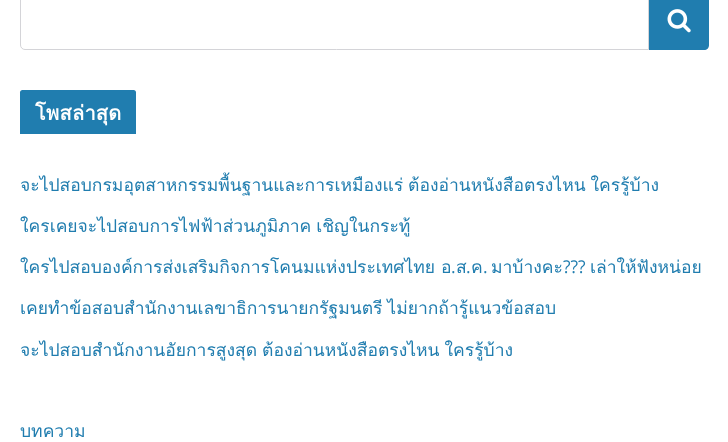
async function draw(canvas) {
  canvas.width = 728;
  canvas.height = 442;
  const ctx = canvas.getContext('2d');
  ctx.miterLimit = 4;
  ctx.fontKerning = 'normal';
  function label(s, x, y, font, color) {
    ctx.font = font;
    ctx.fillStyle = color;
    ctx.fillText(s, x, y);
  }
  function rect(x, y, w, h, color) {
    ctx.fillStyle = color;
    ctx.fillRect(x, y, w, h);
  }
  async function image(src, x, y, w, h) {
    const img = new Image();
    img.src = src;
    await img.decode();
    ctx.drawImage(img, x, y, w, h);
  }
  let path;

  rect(0, 0, 728, 442, '#fff');
  path = new Path2D('M25-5.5H648.5V49.5H25C22.5 49.5 20.5 47.5 20.5 45V-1C20.5-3.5 22.5-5.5 25-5.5Z');
  ctx.strokeStyle = '#d4d4d8';
  ctx.stroke(path);
  ctx.fillStyle = '#207daf';
  path = new Path2D('M649-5H704C707-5 709-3 709 0V45C709 48 707 50 704 50H649Z');
  ctx.fill(path);
  await image('assets/img1.png', 667, 9, 24, 24);
  ctx.beginPath();
  ctx.roundRect(20, 90, 116, 44, [2.5, 2.5, 0, 0]);
  ctx.fill();
  ctx.letterSpacing = '0.25px';
  label('โพสล่าสุด', 35, 120, 'bold 20px Loma', '#fff');
  ctx.letterSpacing = '0px';
  ctx.wordSpacing = '-1px';
  label('จะไปสอบกรมอุตสาหกรรมพื้นฐานและการเหมืองแร่ ต้องอ่านหนังสือตรงไหน ใครรู้บ้าง', 20, 191, '17.5px Loma', '#207daf');
  label('ใครเคยจะไปสอบการไฟฟ้าส่วนภูมิภาค เชิญในกระทู้', 20, 232, '17.5px Loma', '#207daf');
  ctx.wordSpacing = '0px';
  label('ใครไปสอบองค์การส่งเสริมกิจการโคนมแห่งประเทศไทย อ', 20, 273, '17.5px Loma', '#207daf');
  label('.', 451, 273, '17.5px Open Sans', '#207daf');
  label('ส', 456, 273, '17.5px Loma', '#207daf');
  label('.', 466, 273, '17.5px Open Sans', '#207daf');
  label('ค', 471, 273, '17.5px Loma', '#207daf');
  label('.', 483, 273, '17.5px Open Sans', '#207daf');
  label('มาบ้างคะ', 491, 273, '17.5px Loma', '#207daf');
  label('???', 563, 273, '17.5px Open Sans', '#207daf');
  label('เล่าให้ฟังหน่อย', 590, 273, '17.5px Loma', '#207daf');
  ctx.wordSpacing = '-1px';
  label('เคยทำข้อสอบสำนักงานเลขาธิการนายกรัฐมนตรี ไม่ยากถ้ารู้แนวข้อสอบ', 20, 314, '17.5px Loma', '#207daf');
  label('จะไปสอบสำนักงานอัยการสูงสุด ต้องอ่านหนังสือตรงไหน ใครรู้บ้าง', 20, 356, '17.5px Loma', '#207daf');
  ctx.wordSpacing = '0px';
  label('บทความ', 20, 437, '17.5px Loma', '#207daf');
}

draw(document.querySelector('canvas'));
